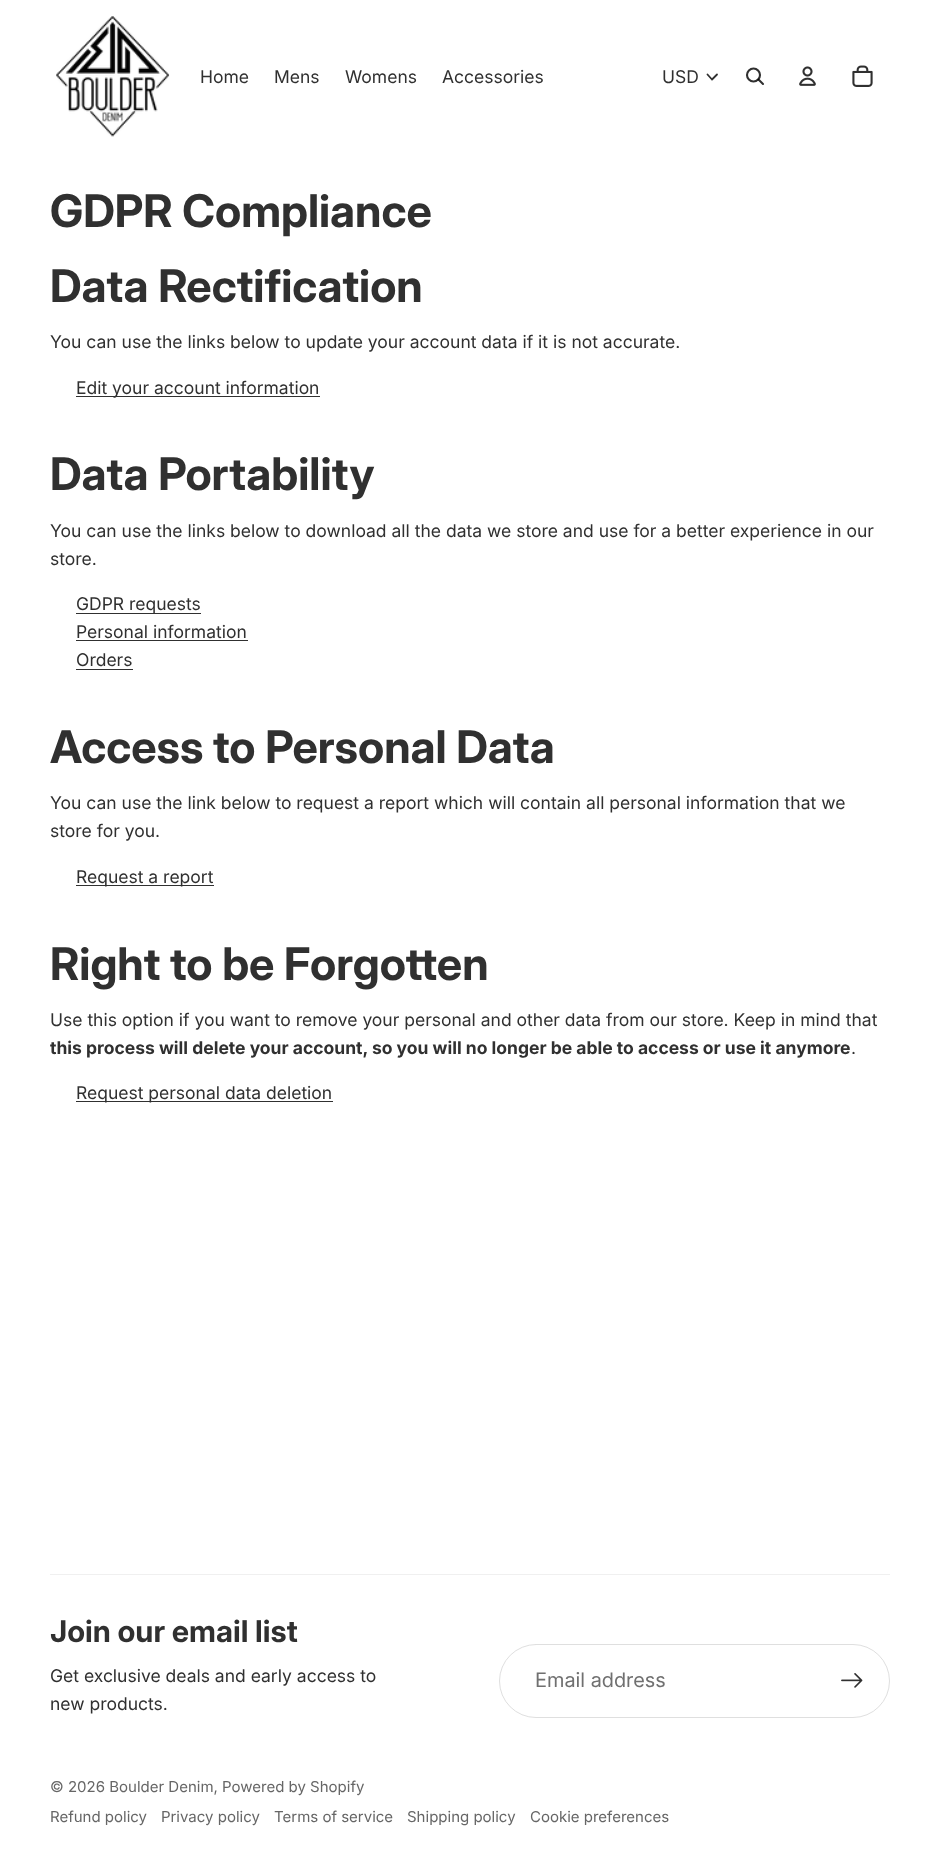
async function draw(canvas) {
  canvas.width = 940;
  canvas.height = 1855;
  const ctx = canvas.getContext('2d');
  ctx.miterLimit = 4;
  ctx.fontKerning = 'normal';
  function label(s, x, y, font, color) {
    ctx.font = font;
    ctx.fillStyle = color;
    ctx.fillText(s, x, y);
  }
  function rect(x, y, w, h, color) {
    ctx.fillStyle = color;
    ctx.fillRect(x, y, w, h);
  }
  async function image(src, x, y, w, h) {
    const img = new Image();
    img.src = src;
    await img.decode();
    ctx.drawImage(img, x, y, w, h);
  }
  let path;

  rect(0, 0, 940, 1855, '#fff');
  await image('assets/img1.png', 56, 16, 114, 121);
  label('Home', 200, 83, '17.5px Inter', '#303030');
  label('Mens', 274, 83, '17.5px Inter', '#303030');
  label('Womens', 345, 83, '17.5px Inter', '#303030');
  label('Accessories', 442, 83, '17.5px Inter', '#303030');
  label('USD', 662, 83, '17.5px Inter', '#303030');
  path = new Path2D('M717 74.5L712 79.5L707.5 74.5');
  ctx.strokeStyle = '#303030';
  ctx.lineWidth = 1.8;
  ctx.lineCap = 'round';
  ctx.lineJoin = 'round';
  ctx.stroke(path);
  ctx.beginPath();
  ctx.arc(753.5, 75, 6.5, 0, 2 * Math.PI);
  ctx.lineWidth = 2.1;
  ctx.stroke();
  path = new Path2D('M758.5 79.5L763 84');
  ctx.strokeStyle = '#000000cf';
  ctx.stroke(path);
  await image('assets/img2.png', 799, 66, 17, 20);
  await image('assets/img3.png', 852, 65, 21, 22);
  label('GDPR Compliance', 50, 227, 'bold 45.1px Inter', '#303030');
  label('Data Rectification', 50, 302, 'bold 45.1px Inter', '#303030');
  label('You can use the links below to update your account data if it is not accurate.', 50, 348, '17.5px Inter', '#303030');
  rect(76, 396, 244, 1, '#303030');
  label('Edit your account information', 76, 394, '17.5px Inter', '#303030');
  label('Data Portability', 50, 490, 'bold 45.1px Inter', '#303030');
  label('You can use the links below to download all the data we store and use for a better experience in our', 50, 537, '17.5px Inter', '#303030');
  label('store.', 50, 565, '17.5px Inter', '#303030');
  rect(76, 613, 125, 1, '#303030');
  label('GDPR requests', 76, 610, '17.5px Inter', '#303030');
  label('Personal information', 76, 638, '17.5px Inter', '#303030');
  rect(76, 640, 172, 1, '#303030');
  label('Orders', 76, 666, '17.5px Inter', '#303030');
  rect(76, 669, 57, 1, '#303030');
  label('Access to Personal Data', 50, 763, 'bold 45.1px Inter', '#303030');
  label('You can use the link below to request a report which will contain all personal information that we', 50, 809, '17.5px Inter', '#303030');
  label('store for you.', 50, 837, '17.5px Inter', '#303030');
  rect(76, 885, 138, 1, '#303030');
  label('Request a report', 76, 883, '17.5px Inter', '#303030');
  label('Right to be Forgotten', 50, 980, 'bold 45.1px Inter', '#303030');
  label('Use this option if you want to remove your personal and other data from our store. Keep in mind that', 50, 1026, '17.5px Inter', '#303030');
  label('this process will delete your account, so you will no longer be able to access or use it anymore', 50, 1054, 'bold 17.5px "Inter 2"', '#303030');
  label('.', 851, 1054, '17.5px Inter', '#303030');
  rect(76, 1101, 257, 1, '#303030');
  label('Request personal data deletion', 76, 1099, '17.5px Inter', '#303030');
  ctx.fillStyle = '#f0f0f0';
  path = new Path2D('M890 1574V1575L889 1574Z');
  ctx.fill(path);
  ctx.fillStyle = '#0000000f';
  path = new Path2D('M890 1575H50V1574H889Z');
  ctx.fill(path);
  label('Join our email list', 50, 1642, 'bold 30px "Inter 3"', '#303030');
  label('Get exclusive deals and early access to', 50, 1682, '17.5px Inter', '#303030');
  label('new products.', 50, 1710, '17.5px Inter', '#303030');
  ctx.beginPath();
  ctx.roundRect(499.5, 1644.5, 390, 73, 36.5);
  ctx.strokeStyle = '#dfdfdf';
  ctx.lineWidth = 1;
  ctx.lineJoin = 'miter';
  ctx.stroke();
  label('Email address', 535, 1687, '20px "Inter 2"', '#707070');
  await image('assets/img4.png', 841, 1673, 22, 15);
  label('© 2026 Boulder Denim, Powered by Shopify', 50, 1792, '15px Inter', '#666');
  label('Refund policy', 50, 1822, '15px Inter', '#666');
  label('Privacy policy', 161, 1822, '15px Inter', '#666');
  label('Terms of service', 274, 1822, '15px Inter', '#666');
  label('Shipping policy', 407, 1822, '15px Inter', '#666');
  label('Cookie preferences', 530, 1822, '15px Inter', '#666');
}

draw(document.querySelector('canvas'));
